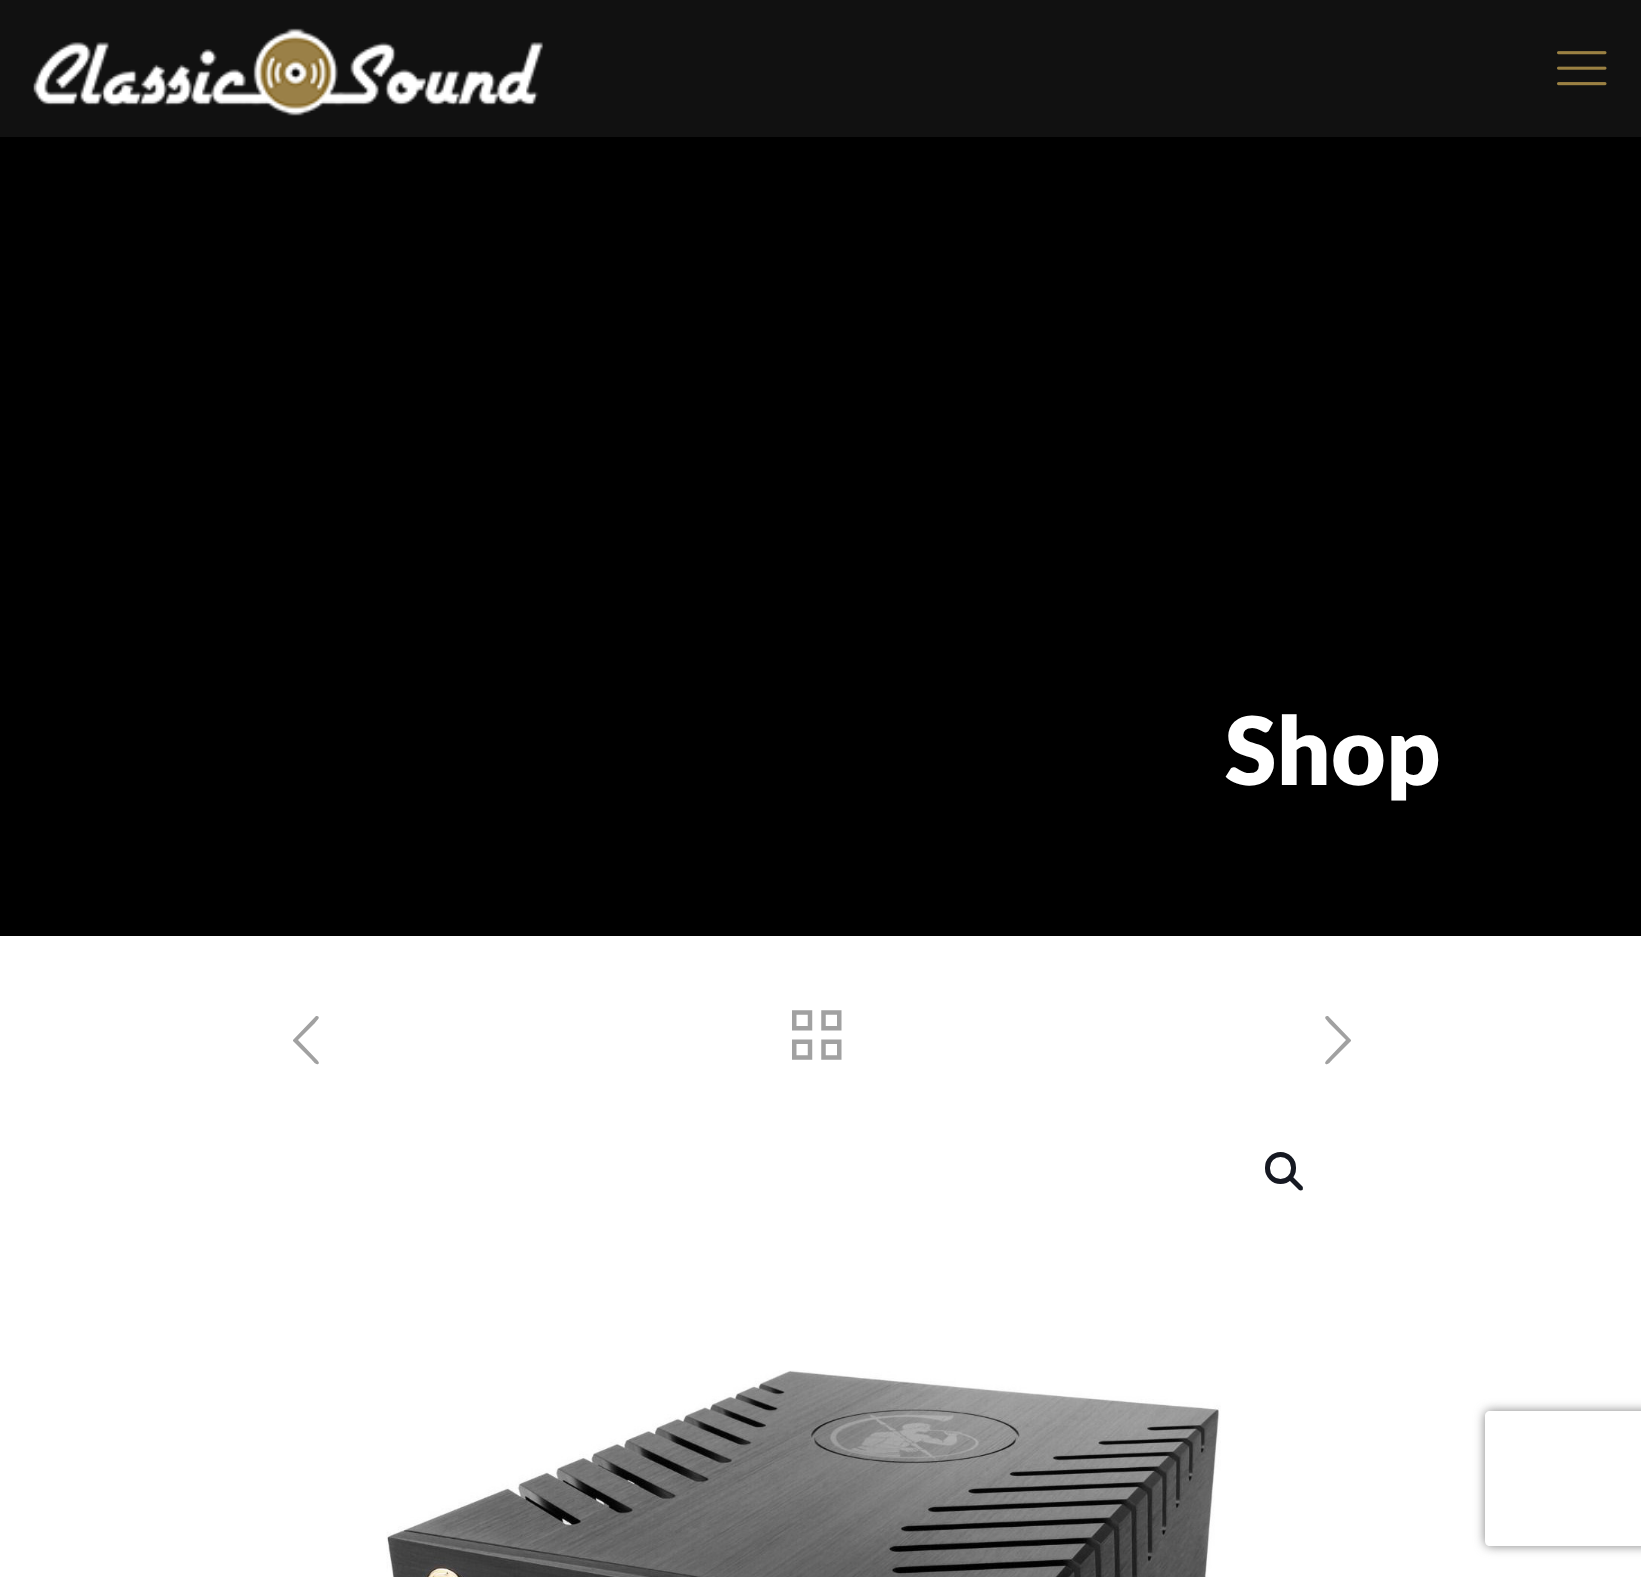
async function draw(canvas) {
  canvas.width = 1641;
  canvas.height = 1577;
  const ctx = canvas.getContext('2d');
  ctx.miterLimit = 4;
  ctx.fontKerning = 'normal';
  function label(s, x, y, font, color) {
    ctx.font = font;
    ctx.fillStyle = color;
    ctx.fillText(s, x, y);
  }
  function rect(x, y, w, h, color) {
    ctx.fillStyle = color;
    ctx.fillRect(x, y, w, h);
  }
  async function image(src, x, y, w, h) {
    const img = new Image();
    img.src = src;
    await img.decode();
    ctx.drawImage(img, x, y, w, h);
  }
  let path;

  rect(0, 0, 1641, 1577, '#fff');
  rect(0, 137, 1641, 799, '#000');
  rect(0, 0, 1641, 137, '#111');
  await image('assets/img1.png', 33, 28, 510, 88);
  await image('assets/img2.png', 1557, 51, 50, 35);
  label('Shop', 1225, 785, '900 94.5px Lato', '#fff');
  ctx.fillStyle = '#a1a1a1';
  path = new Path2D('M318 1061L319 1063C317 1067 312 1060 312 1060L293 1041V1040L316 1016H317C322 1017 315 1022 315 1023L298 1040Z');
  ctx.fill(path);
  await image('assets/img3.png', 792, 1010, 50, 50);
  path = new Path2D('M1326 1061L1346 1040L1329 1023C1329 1022 1322 1017 1327 1016H1328L1351 1040V1041L1332 1060C1332 1060 1327 1067 1325 1063Z');
  ctx.fill(path);
  ctx.beginPath();
  ctx.roundRect(1267.5, 1154.5, 26, 27, 13);
  ctx.strokeStyle = '#161922';
  ctx.lineWidth = 5;
  ctx.stroke();
  ctx.fillStyle = '#161922';
  path = new Path2D('M1289.5 1177C1290.5 1176.5 1292 1176.5 1293 1177L1302.5 1186.5C1303 1187.5 1303 1189 1302.5 1190C1301.5 1190.5 1300 1190.5 1299 1190L1289.5 1180.5C1289 1179.5 1289 1178 1289.5 1177Z');
  ctx.fill(path);
  await image('assets/img4.png', 386, 1370, 835, 207);
  ctx.save();
  path = new Path2D('M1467 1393H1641V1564H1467ZM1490 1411H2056C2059 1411 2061 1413 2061 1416V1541C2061 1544 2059 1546 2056 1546H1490C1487 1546 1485 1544 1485 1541V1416C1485 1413 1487 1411 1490 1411Z');
  ctx.clip(path, 'evenodd');
  ctx.fillStyle = '#808080';
  ctx.filter = 'blur(5.5px)';
  ctx.beginPath();
  ctx.roundRect(1485, 1411, 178, 135, 5);
  ctx.fill();
  ctx.filter = 'none';
  ctx.restore();
}

draw(document.querySelector('canvas'));
